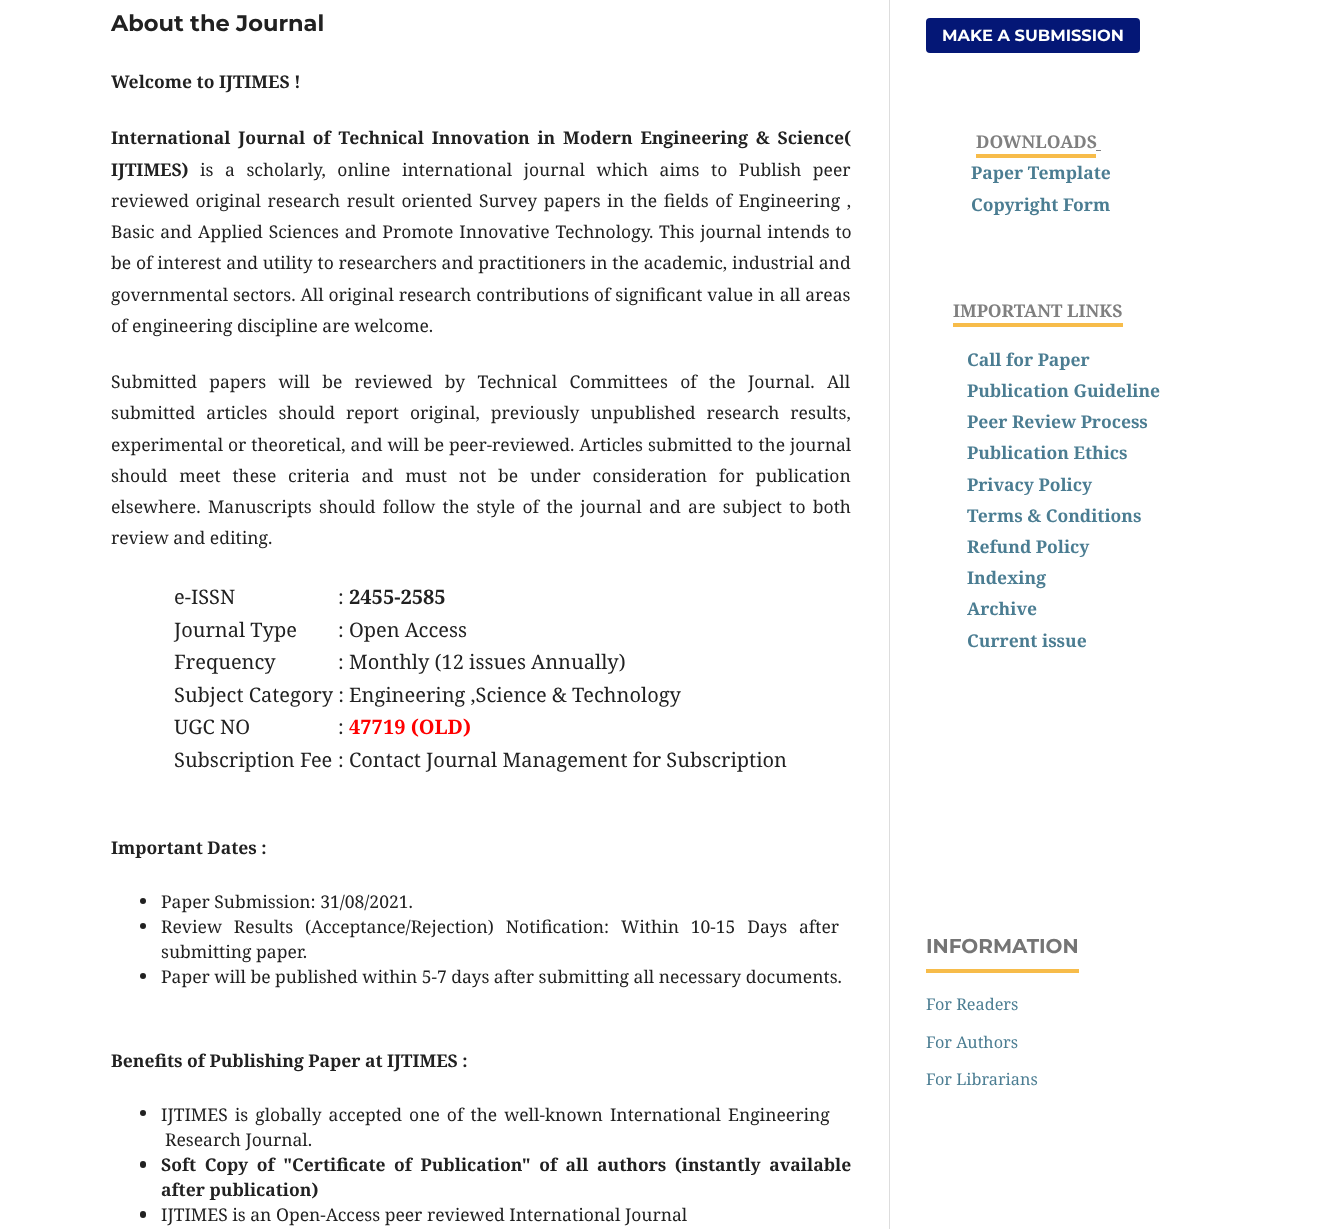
async function draw(canvas) {
  canvas.width = 1336;
  canvas.height = 1229;
  const ctx = canvas.getContext('2d');
  ctx.miterLimit = 4;
  ctx.fontKerning = 'normal';
  function label(s, x, y, font, color) {
    ctx.font = font;
    ctx.fillStyle = color;
    ctx.fillText(s, x, y);
  }
  function rect(x, y, w, h, color) {
    ctx.fillStyle = color;
    ctx.fillRect(x, y, w, h);
  }
  function roundedRect(x, y, w, h, r, color) {
    ctx.fillStyle = color;
    ctx.beginPath();
    ctx.roundRect(x, y, w, h, r);
    ctx.fill();
  }

  rect(0, 0, 1336, 1229, '#fff');
  label('About the Journal', 111, 31, 'bold 22.5px Montserrat', '#212121');
  label('Welcome to IJTIMES !', 111, 88, 'bold 17.5px Noto Serif', '#212121');
  ctx.wordSpacing = '3.25px';
  label('International Journal of Technical Innovation in Modern Engineering & Science(', 111, 144, 'bold 17.5px Noto Serif', '#212121');
  ctx.wordSpacing = '0px';
  label('IJTIMES)', 111, 176, 'bold 17.5px Noto Serif', '#212121');
  ctx.wordSpacing = '7px';
  label('is a scholarly, online international journal which aims to Publish peer', 200, 176, '17.5px Noto Serif', '#212121');
  ctx.wordSpacing = '2px';
  label('reviewed original research result oriented Survey papers in the fields of Engineering ,', 111, 207, '17.5px Noto Serif', '#212121');
  ctx.wordSpacing = '1.25px';
  label('Basic and Applied Sciences and Promote Innovative Technology. This journal intends to', 111, 238, '17.5px Noto Serif', '#212121');
  ctx.wordSpacing = '0.25px';
  label('be of interest and utility to researchers and practitioners in the academic, industrial and', 111, 269, '17.5px Noto Serif', '#212121');
  label('governmental sectors. All original research contributions of significant value in all areas', 111, 301, '17.5px Noto Serif', '#212121');
  ctx.wordSpacing = '0px';
  label('of engineering discipline are welcome.', 111, 332, '17.5px Noto Serif', '#212121');
  ctx.wordSpacing = '7.75px';
  label('Submitted papers will be reviewed by Technical Committees of the Journal. All', 111, 388, '17.5px Noto Serif', '#212121');
  ctx.wordSpacing = '6.5px';
  label('submitted articles should report original, previously unpublished research results,', 111, 419, '17.5px Noto Serif', '#212121');
  ctx.wordSpacing = '0.4px';
  label('experimental or theoretical, and will be peer-reviewed. Articles submitted to the journal', 111, 451, '17.5px Noto Serif', '#212121');
  ctx.wordSpacing = '7.25px';
  label('should meet these criteria and must not be under consideration for publication', 111, 482, '17.5px Noto Serif', '#212121');
  ctx.wordSpacing = '2.75px';
  label('elsewhere. Manuscripts should follow the style of the journal and are subject to both', 111, 513, '17.5px Noto Serif', '#212121');
  ctx.wordSpacing = '0px';
  label('review and editing.', 111, 544, '17.5px Noto Serif', '#212121');
  label('e-ISSN', 174, 604, '20px Noto Serif', '#212121');
  label(':', 338, 604, '20px Noto Serif', '#212121');
  label('2455-2585', 349, 604, 'bold 20px Noto Serif', '#212121');
  label('Journal Type', 174, 637, '20px Noto Serif', '#212121');
  label(': Open Access', 338, 637, '20px Noto Serif', '#212121');
  label('Frequency', 174, 669, '20px Noto Serif', '#212121');
  label(': Monthly (12 issues Annually)', 338, 669, '20px Noto Serif', '#212121');
  label('Subject Category : Engineering ,Science & Technology', 174, 702, '20px Noto Serif', '#212121');
  label('UGC NO', 174, 734, '20px Noto Serif', '#212121');
  label(':', 338, 734, '20px Noto Serif', '#212121');
  label('47719 (OLD)', 349, 734, 'bold 20px Noto Serif', '#f00');
  label('Subscription Fee', 174, 767, '20px Noto Serif', '#212121');
  label(': Contact Journal Management for Subscription', 338, 767, '20px Noto Serif', '#212121');
  label('Important Dates :', 111, 854, 'bold 17.5px Noto Serif', '#212121');
  ctx.beginPath();
  ctx.arc(143, 901, 3, 0, 2 * Math.PI);
  ctx.fill();
  label('Paper Submission: 31/08/2021.', 161, 908, '17.5px Noto Serif', '#212121');
  ctx.beginPath();
  ctx.arc(143, 926, 3, 0, 2 * Math.PI);
  ctx.fill();
  ctx.wordSpacing = '7.25px';
  label('Review Results (Acceptance/Rejection) Notification: Within 10-15 Days after', 161, 933, '17.5px Noto Serif', '#212121');
  ctx.wordSpacing = '0px';
  label('submitting paper.', 161, 958, '17.5px Noto Serif', '#212121');
  ctx.beginPath();
  ctx.arc(143, 976, 3, 0, 2 * Math.PI);
  ctx.fill();
  label('Paper will be published within 5-7 days after submitting all necessary documents.', 161, 983, '17.5px Noto Serif', '#212121');
  label('Benefits of Publishing Paper at IJTIMES :', 111, 1067, 'bold 17.5px Noto Serif', '#212121');
  ctx.beginPath();
  ctx.arc(143, 1113, 3, 0, 2 * Math.PI);
  ctx.fill();
  ctx.wordSpacing = '2.5px';
  label('IJTIMES is globally accepted one of the well-known International Engineering', 161, 1121, '17.5px Noto Serif', '#212121');
  ctx.wordSpacing = '0px';
  label('Research Journal.', 165, 1146, '17.5px Noto Serif', '#212121');
  roundedRect(140, 1161, 6, 7, 3, '#212121');
  ctx.wordSpacing = '4px';
  label('Soft Copy of "Certificate of Publication" of all authors (instantly available', 161, 1171, 'bold 17.5px Noto Serif', '#212121');
  ctx.wordSpacing = '0px';
  label('after publication)', 161, 1196, 'bold 17.5px Noto Serif', '#212121');
  roundedRect(140, 1211, 6, 7, 3, '#212121');
  label('IJTIMES is an Open-Access peer reviewed International Journal', 161, 1221, '17.5px Noto Serif', '#212121');
  rect(889, 0, 1, 1229, '#ddd');
  roundedRect(926, 18, 214, 35, 4, '#041776');
  label('MAKE A SUBMISSION', 942, 41, 'bold 16.25px Montserrat', '#fff');
  label('DOWNLOADS', 976, 148, 'bold 17.5px Noto Serif', '#808080');
  rect(976, 154, 120, 4, '#f7bc4a');
  rect(1096, 150, 5, 1, '#808080');
  label('Paper Template', 971, 179, 'bold 17.5px Noto Serif', '#4b7d92');
  label('Copyright Form', 971, 211, 'bold 17.5px Noto Serif', '#4b7d92');
  label('IMPORTANT LINKS', 953, 317, 'bold 17.5px Noto Serif', '#808080');
  rect(953, 323, 170, 4, '#f7bc4a');
  label('Call for Paper', 967, 366, 'bold 17.5px Noto Serif', '#4b7d92');
  label('Publication Guideline', 967, 397, 'bold 17.5px Noto Serif', '#4b7d92');
  label('Peer Review Process', 967, 428, 'bold 17.5px Noto Serif', '#4b7d92');
  label('Publication Ethics', 967, 459, 'bold 17.5px Noto Serif', '#4b7d92');
  label('Privacy Policy', 967, 491, 'bold 17.5px Noto Serif', '#4b7d92');
  label('Terms & Conditions', 967, 522, 'bold 17.5px Noto Serif', '#4b7d92');
  label('Refund Policy', 967, 553, 'bold 17.5px Noto Serif', '#4b7d92');
  label('Indexing', 967, 584, 'bold 17.5px Noto Serif', '#4b7d92');
  label('Archive', 967, 615, 'bold 17.5px Noto Serif', '#4b7d92');
  label('Current issue', 967, 647, 'bold 17.5px Noto Serif', '#4b7d92');
  rect(926, 969, 153, 4, '#f7bc4a');
  label('INFORMATION', 926, 953, 'bold 20px Montserrat', '#757575');
  label('For Readers', 926, 1010, '16.25px Noto Serif', '#4b7d92');
  label('For Authors', 926, 1048, '16.25px Noto Serif', '#4b7d92');
  label('For Librarians', 926, 1085, '16.25px Noto Serif', '#4b7d92');
}

draw(document.querySelector('canvas'));
